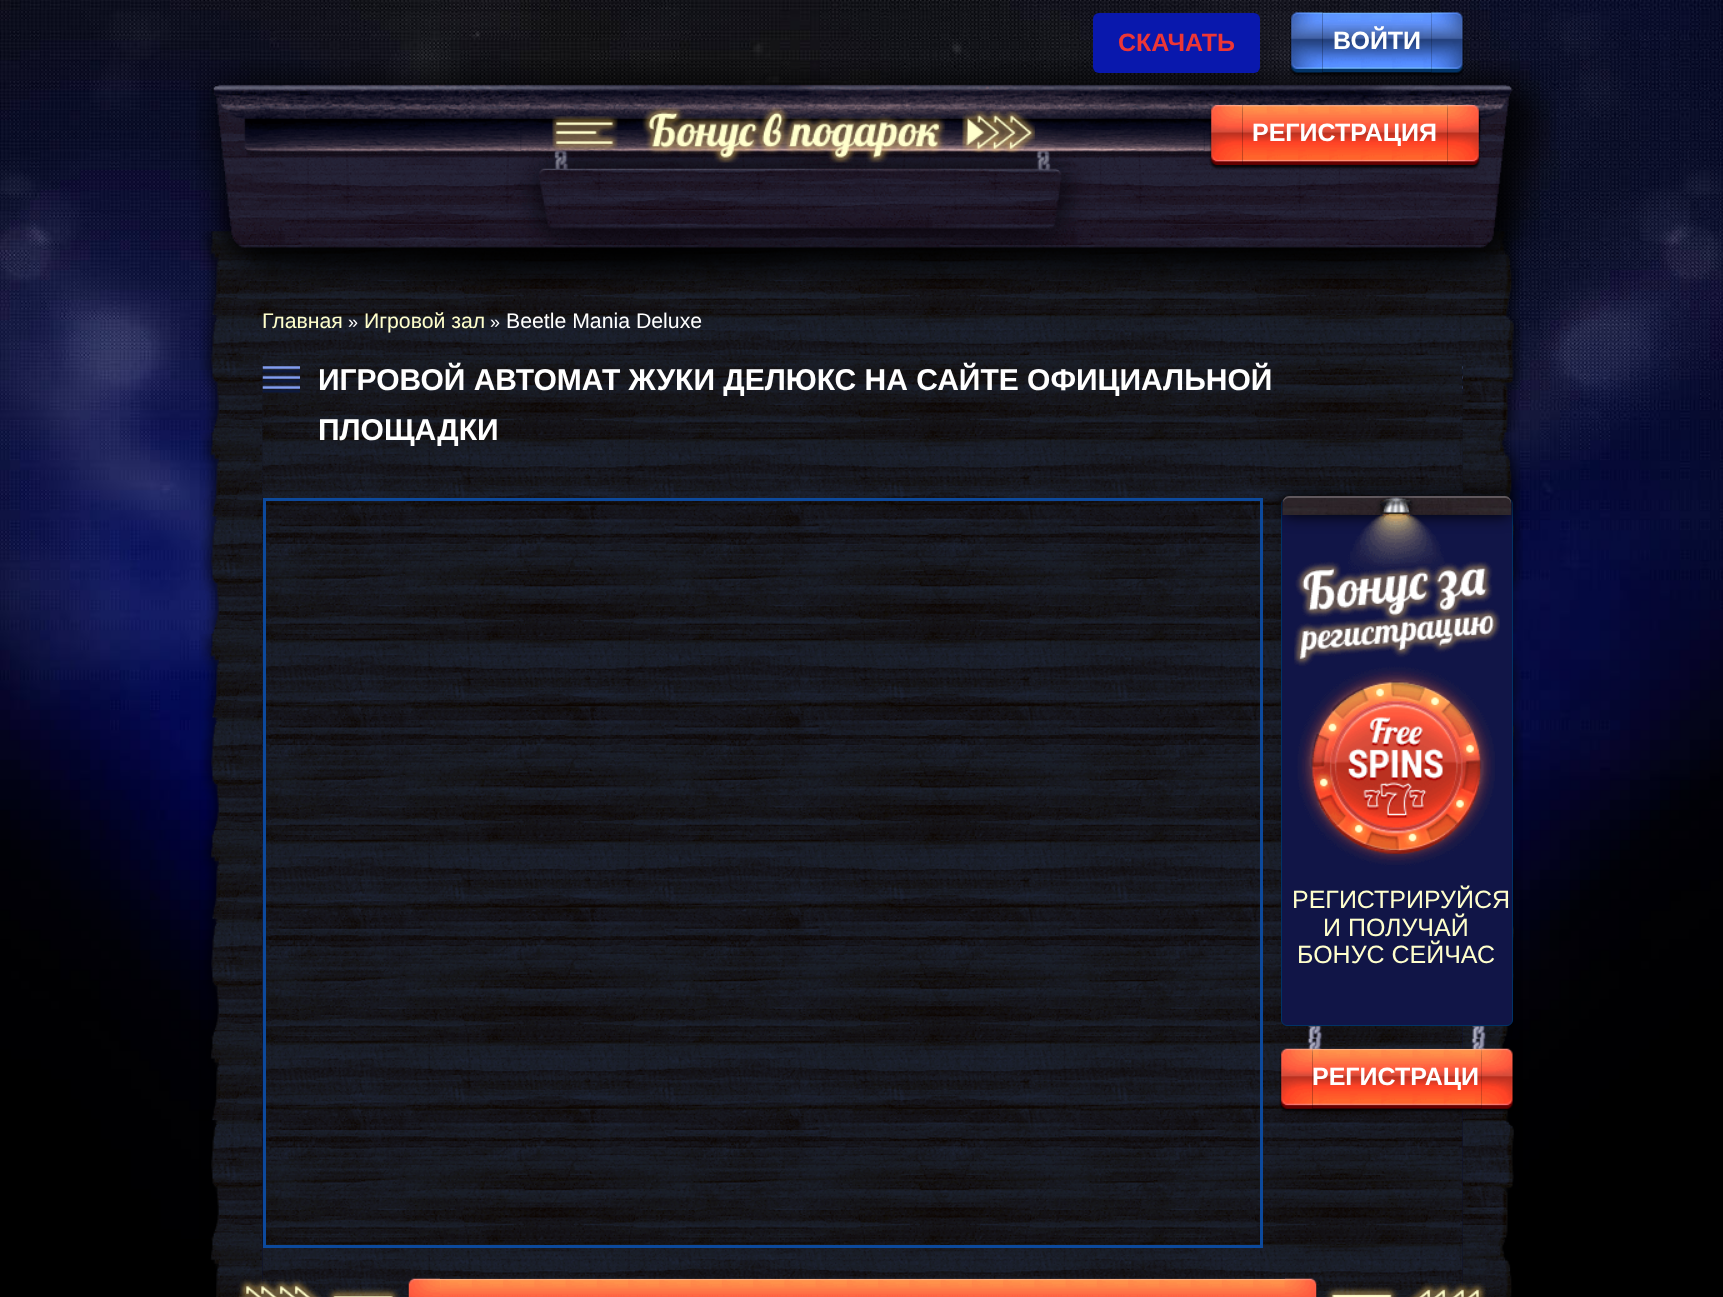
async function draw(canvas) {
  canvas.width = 1723;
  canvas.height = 1297;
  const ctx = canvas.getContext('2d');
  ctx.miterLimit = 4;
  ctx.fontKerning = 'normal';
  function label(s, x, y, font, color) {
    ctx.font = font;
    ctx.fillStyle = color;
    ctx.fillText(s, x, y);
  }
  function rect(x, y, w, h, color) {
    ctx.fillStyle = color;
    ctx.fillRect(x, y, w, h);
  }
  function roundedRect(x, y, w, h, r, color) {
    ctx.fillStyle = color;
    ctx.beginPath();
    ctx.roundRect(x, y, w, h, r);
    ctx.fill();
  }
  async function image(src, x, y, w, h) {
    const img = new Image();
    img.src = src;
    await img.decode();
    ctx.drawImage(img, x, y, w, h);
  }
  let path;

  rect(0, 0, 1723, 1297, '#000');
  await image('assets/img1.png', 0, 0, 1723, 1239);
  await image('assets/img12.png', 199, 231, 1324, 1066);
  await image('assets/img5.png', 196, 61, 1361, 225);
  roundedRect(1093, 13, 167, 60, 6, '#0918ad');
  label('СКАЧАТЬ', 1118, 51, 'bold 25px Liberation Sans', '#ec3636');
  ctx.fillStyle = '#000000cc';
  ctx.filter = 'blur(1px)';
  ctx.beginPath();
  ctx.roundRect(1291, 15, 172, 60, 6);
  ctx.fill();
  ctx.filter = 'none';
  await image('assets/img2.png', 1322, 12, 110, 61);
  await image('assets/img3.png', 1291, 12, 32, 61);
  label('ВОЙТИ', 1333, 49, 'bold 25px Liberation Sans', '#fff');
  await image('assets/img4.png', 1431, 12, 32, 61);
  await image('assets/img6.png', 642, 107, 303, 56);
  await image('assets/img7.png', 552, 116, 66, 34);
  await image('assets/img8.png', 962, 111, 73, 42);
  ctx.fillStyle = '#000000cc';
  ctx.filter = 'blur(1px)';
  ctx.beginPath();
  ctx.roundRect(1211, 108, 268, 60, 6);
  ctx.fill();
  ctx.filter = 'none';
  await image('assets/img9.png', 1242, 105, 206, 60);
  await image('assets/img10.png', 1211, 105, 32, 60);
  label('РЕГИСТРАЦИЯ', 1252, 141, 'bold 25px Liberation Sans', '#fff');
  await image('assets/img11.png', 1447, 105, 32, 60);
  label('Главная', 262, 328, '21.25px Liberation Sans', '#ffc');
  label('»', 348, 328, '18px Liberation Sans', '#fff');
  label('Игровой зал', 364, 328, '21.25px Liberation Sans', '#ffc');
  label('»', 490, 328, '18px Liberation Sans', '#fff');
  label('Beetle Mania Deluxe', 506, 328, '21.25px Liberation Sans', '#fff');
  await image('assets/img13.png', 262, 355, 1201, 942);
  await image('assets/img14.png', 262, 355, 1201, 942);
  await image('assets/img15.png', 262, 366, 38, 27);
  label('ИГРОВОЙ АВТОМАТ ЖУКИ ДЕЛЮКС НА САЙТЕ ОФИЦИАЛЬНОЙ', 318, 390, 'bold 30px Liberation Sans', '#fff');
  label('ПЛОЩАДКИ', 318, 440, 'bold 30px Liberation Sans', '#fff');
  await image('assets/img16.png', 1462, 366, 1, 26);
  ctx.fillStyle = '#111547';
  ctx.beginPath();
  ctx.roundRect(1281.5, 498.5, 231, 527, 5.5);
  ctx.fill();
  ctx.strokeStyle = '#036';
  ctx.stroke();
  ctx.fillStyle = '#000';
  ctx.filter = 'blur(8px)';
  ctx.beginPath();
  ctx.roundRect(1283, 496, 228, 19, 6);
  ctx.fill();
  ctx.filter = 'none';
  ctx.strokeStyle = '#0c499c';
  ctx.lineWidth = 3;
  ctx.strokeRect(264.5, 499.5, 997, 747);
  await image('assets/img17.png', 1282, 496, 230, 19);
  ctx.fillStyle = '#60585d';
  path = new Path2D('M1289 498H1505C1508 498 1511 500 1511 504V502C1511 499 1508 496 1505 496H1289C1286 496 1283 499 1283 502C1284 500 1286 498 1289 498Z');
  ctx.fill(path);
  await image('assets/img19.png', 1294, 561, 206, 305);
  await image('assets/img18.png', 1348, 496, 97, 76);
  label('РЕГИСТРИРУЙСЯ', 1292, 908, '25px Liberation Sans', '#ffc');
  label('И ПОЛУЧАЙ', 1323, 936, '25px Liberation Sans', '#ffc');
  label('БОНУС СЕЙЧАС', 1297, 963, '25px Liberation Sans', '#ffc');
  await image('assets/img20.png', 1307, 1026, 179, 29);
  ctx.fillStyle = '#000000cc';
  ctx.filter = 'blur(1px)';
  ctx.beginPath();
  ctx.roundRect(1281, 1051, 232, 60, 6);
  ctx.fill();
  ctx.filter = 'none';
  await image('assets/img21.png', 1312, 1048, 170, 61);
  await image('assets/img22.png', 1281, 1048, 32, 61);
  label('РЕГИСТРАЦИ', 1312, 1085, 'bold 25px Liberation Sans', '#fff');
  await image('assets/img23.png', 1481, 1048, 32, 61);
  await image('assets/img24.png', 236, 1279, 164, 18);
  ctx.fillStyle = '#000000cc';
  ctx.filter = 'blur(1px)';
  ctx.beginPath();
  ctx.roundRect(409, 1281, 907, 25, 6);
  ctx.fill();
  ctx.filter = 'none';
  await image('assets/img25.png', 440, 1278, 845, 19);
  await image('assets/img26.png', 408, 1278, 32, 19);
  await image('assets/img27.png', 1285, 1278, 32, 19);
  await image('assets/img28.png', 1325, 1283, 162, 14);
}

draw(document.querySelector('canvas'));
